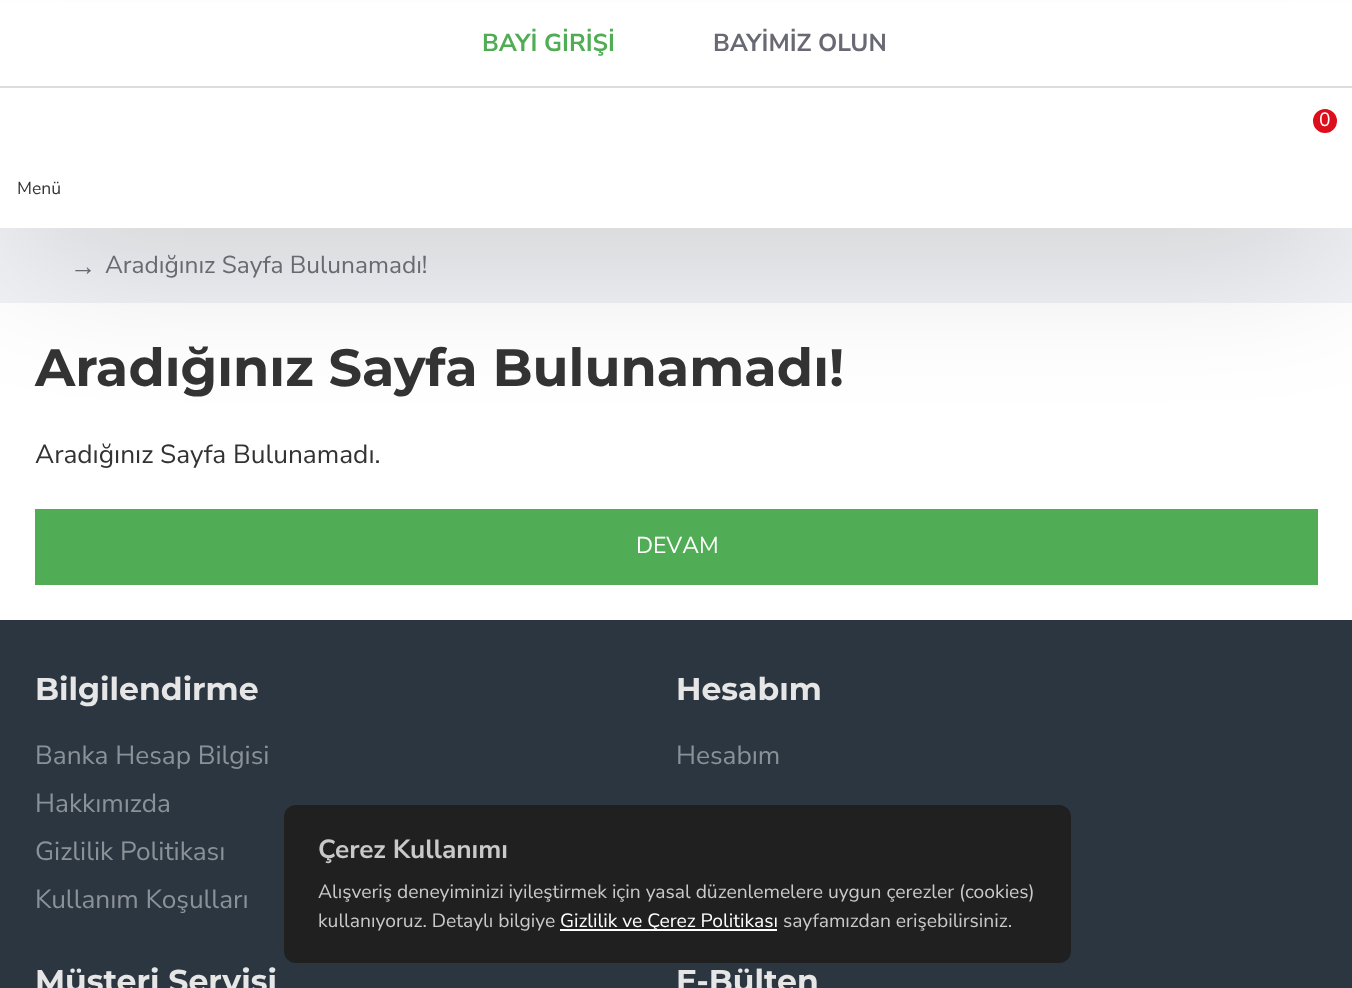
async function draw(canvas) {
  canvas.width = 1352;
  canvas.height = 988;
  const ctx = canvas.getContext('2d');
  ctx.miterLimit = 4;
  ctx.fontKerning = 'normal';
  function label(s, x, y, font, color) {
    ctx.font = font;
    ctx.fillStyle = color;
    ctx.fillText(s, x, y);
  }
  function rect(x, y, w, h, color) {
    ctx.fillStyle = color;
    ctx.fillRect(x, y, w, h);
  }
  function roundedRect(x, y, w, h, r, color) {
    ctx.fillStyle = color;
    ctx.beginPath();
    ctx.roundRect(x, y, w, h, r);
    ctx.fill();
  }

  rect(0, 0, 1352, 988, '#fff');
  rect(0, 228, 1352, 75, '#f0f2f5');
  ctx.fillStyle = '#00000033';
  ctx.filter = 'blur(79px)';
  ctx.beginPath();
  ctx.rect(18, 131, 1317, 105);
  ctx.fill();
  ctx.filter = 'none';
  rect(0, 2, 1352, 84, '#fff');
  rect(0, 86, 1352, 2, '#ddd');
  label('BAYİ GİRİŞİ', 482, 51, 'bold 24.5px Nunito Sans', '#50ad55');
  label('BAYİMİZ OLUN', 713, 51, 'bold 24.5px Nunito Sans', '#696973');
  rect(0, 88, 1352, 140, '#fff');
  ctx.fillStyle = '#dd0e1c';
  ctx.beginPath();
  ctx.arc(1325, 121, 14, 0, 2 * Math.PI);
  ctx.fill();
  ctx.strokeStyle = '#fff';
  ctx.lineWidth = 4;
  ctx.stroke();
  label('0', 1319, 126, '19.25px Nunito Sans', '#fff');
  label('Menü', 17, 194, '17.5px Nunito Sans', '#333');
  label('→', 70, 275, '26.25px Liberation Serif', '#696973');
  label('Aradığınız Sayfa Bulunamadı!', 105, 273, '24.5px Nunito Sans', '#696973');
  label('Aradığınız Sayfa Bulunamadı!', 35, 386, 'bold 52.5px Montserrat', '#333');
  label('Aradığınız Sayfa Bulunamadı.', 35, 463, '26.25px Nunito Sans', '#333');
  rect(35, 509, 1283, 76, '#50ad55');
  label('DEVAM', 636, 553, '23px Nunito Sans', '#fff');
  rect(0, 620, 1352, 368, '#2c3640');
  label('Bilgilendirme', 35, 700, 'bold 31.5px Montserrat', '#e6e6e6');
  label('Banka Hesap Bilgisi', 35, 764, '26.25px Nunito Sans', '#8b9198');
  label('Hakkımızda', 35, 812, '26.25px Nunito Sans', '#8b9198');
  label('Gizlilik Politikası', 35, 860, '26.25px Nunito Sans', '#8b9198');
  label('Kullanım Koşulları', 35, 908, '26.25px Nunito Sans', '#8b9198');
  label('Hesabım', 676, 700, 'bold 31.5px Montserrat', '#e6e6e6');
  label('Hesabım', 676, 764, '26.25px Nunito Sans', '#8b9198');
  label('Müşteri Servisi', 35, 992, 'bold 31.5px Montserrat', '#e6e6e6');
  label('E-Bülten', 676, 992, 'bold 31.5px Montserrat', '#e6e6e6');
  roundedRect(284, 805, 787, 158, 12, '#202020f2');
  label('Çerez Kullanımı', 318, 858, 'bold 26.25px Nunito Sans', '#c9c9c9');
  label('Alışveriş deneyiminizi iyileştirmek için yasal düzenlemelere uygun çerezler (cookies)', 318, 898, '19.25px Nunito Sans', '#c9c9c9');
  label('kullanıyoruz. Detaylı bilgiye', 318, 927, '19.25px Nunito Sans', '#c9c9c9');
  rect(560, 929, 217, 2, '#fff');
  label('Gizlilik ve Çerez Politikası', 560, 927, '19.25px Nunito Sans', '#fff');
  label('sayfamızdan erişebilirsiniz.', 783, 927, '19.25px Nunito Sans', '#c9c9c9');
}

draw(document.querySelector('canvas'));
